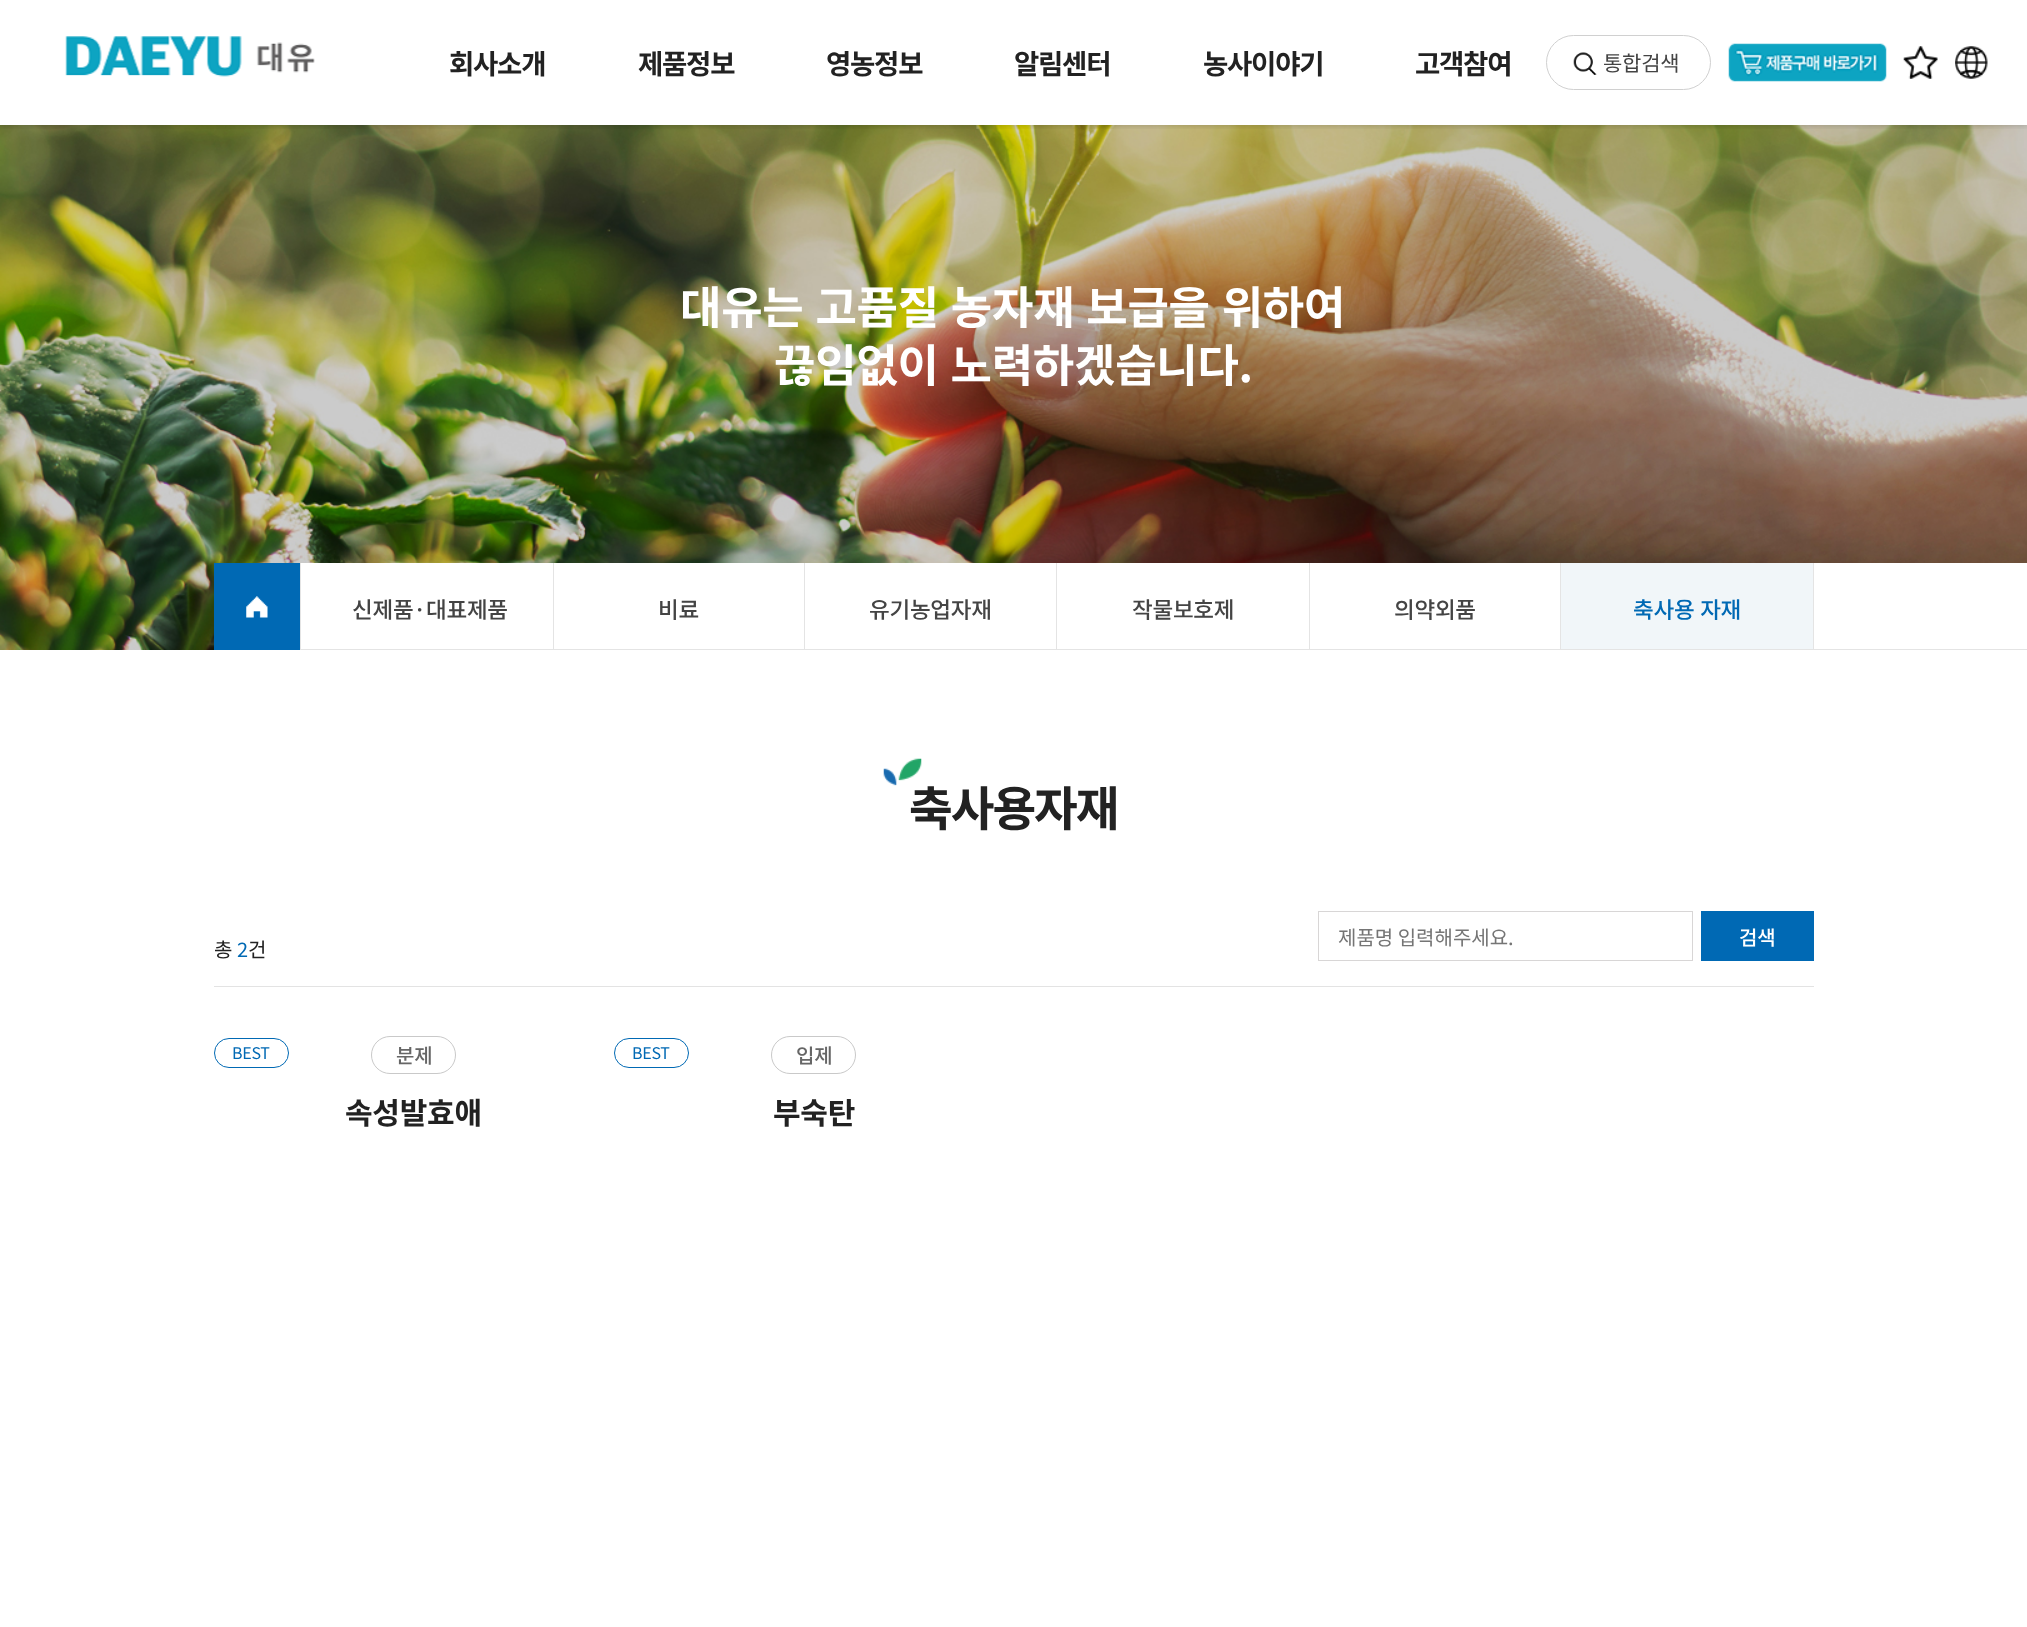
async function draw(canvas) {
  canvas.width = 2027;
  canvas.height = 1627;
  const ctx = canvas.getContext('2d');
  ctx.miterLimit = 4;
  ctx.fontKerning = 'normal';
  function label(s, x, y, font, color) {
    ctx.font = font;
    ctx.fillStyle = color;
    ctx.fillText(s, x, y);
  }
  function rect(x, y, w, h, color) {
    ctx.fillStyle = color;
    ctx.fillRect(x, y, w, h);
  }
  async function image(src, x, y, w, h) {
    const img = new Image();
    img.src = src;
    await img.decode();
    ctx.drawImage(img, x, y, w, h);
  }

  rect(0, 0, 2027, 1627, '#fff');
  await image('assets/img6.png', 0, 125, 2027, 525);
  ctx.save();
  ctx.beginPath();
  ctx.rect(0, 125, 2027, 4);
  ctx.clip();
  ctx.fillStyle = '#00000033';
  ctx.filter = 'blur(3px)';
  ctx.beginPath();
  ctx.rect(0, 0, 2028, 125);
  ctx.fill();
  ctx.filter = 'none';
  ctx.restore();
  await image('assets/img1.png', 65, 36, 250, 41);
  ctx.letterSpacing = '-1.25px';
  label('회사소개', 449, 74, 'bold 27.5px Noto Sans KR', '#222');
  label('제품정보', 638, 74, 'bold 27.5px Noto Sans KR', '#222');
  label('영농정보', 826, 74, 'bold 27.5px Noto Sans KR', '#222');
  label('알림센터', 1014, 74, 'bold 27.5px Noto Sans KR', '#222');
  label('농사이야기', 1203, 74, 'bold 27.5px Noto Sans KR', '#222');
  label('고객참여', 1415, 74, 'bold 27.5px Noto Sans KR', '#222');
  await image('assets/img2.png', 1573, 52, 24, 23);
  ctx.beginPath();
  ctx.roundRect(1546.5, 35.5, 164, 54, 27);
  ctx.strokeStyle = '#d0d0d0';
  ctx.stroke();
  ctx.letterSpacing = '-0.25px';
  label('통합검색', 1603, 71, '21px Noto Sans KR', '#444');
  await image('assets/img3.png', 1728, 43, 159, 39);
  await image('assets/img4.png', 1903, 46, 35, 33);
  await image('assets/img5.png', 1955, 46, 33, 33);
  ctx.wordSpacing = '2px';
  label('대유는 고품질 농자재 보급을 위하여', 680, 324, 'bold 45px Noto Sans KR', '#fff');
  label('끊임없이 노력하겠습니다.', 774, 382, 'bold 45px Noto Sans KR', '#fff');
  rect(301, 563, 1259, 86, '#fff');
  rect(214, 563, 86, 87, '#0069b4');
  await image('assets/img7.png', 246, 596, 22, 22);
  rect(300, 563, 1, 87, '#e4e4e4');
  rect(553, 563, 1, 87, '#e4e4e4');
  rect(301, 649, 253, 1, '#e4e4e4');
  ctx.wordSpacing = '0px';
  label('신제품·대표제품', 352, 618, '500 22.5px Noto Sans KR', '#444');
  rect(804, 563, 1, 87, '#e4e4e4');
  rect(554, 649, 251, 1, '#e4e4e4');
  label('비료', 658, 618, '500 22.5px Noto Sans KR', '#444');
  rect(1056, 563, 1, 87, '#e4e4e4');
  rect(805, 649, 253, 1, '#e4e4e4');
  label('유기농업자재', 869, 618, '500 22.5px Noto Sans KR', '#444');
  rect(1309, 563, 1, 87, '#e4e4e4');
  rect(1058, 649, 252, 1, '#e4e4e4');
  label('작물보호제', 1132, 618, '500 22.5px Noto Sans KR', '#444');
  rect(1560, 563, 1, 87, '#e4e4e4');
  rect(1310, 649, 251, 1, '#e4e4e4');
  label('의약외품', 1394, 618, '500 22.5px Noto Sans KR', '#444');
  rect(1561, 563, 252, 86, '#f1f6f9');
  rect(1813, 563, 1, 87, '#e4e4e4');
  rect(1561, 649, 253, 1, '#e4e4e4');
  ctx.wordSpacing = '1px';
  label('축사용 자재', 1633, 618, '500 22.5px Noto Sans KR', '#0069b4');
  rect(1814, 563, 213, 86, '#fff');
  rect(1814, 649, 213, 1, '#e4e4e4');
  await image('assets/img8.png', 883, 758, 39, 28);
  ctx.letterSpacing = '-2px';
  ctx.wordSpacing = '0px';
  label('축사용자재', 909, 826, 'bold 47.5px Noto Sans KR', '#222');
  ctx.strokeStyle = '#d8d6d6';
  ctx.strokeRect(1318.5, 911.5, 374, 49);
  ctx.letterSpacing = '0px';
  label('제품명 입력해주세요.', 1338, 945, '20px Noto Sans KR', '#757575');
  rect(1701, 911, 113, 50, '#0069b4');
  ctx.letterSpacing = '-0.25px';
  label('검색', 1739, 945, '500 20px Noto Sans KR', '#fff');
  label('총', 214, 957, '20px Noto Sans KR', '#222');
  label('2', 237, 957, '20px Noto Sans KR', '#0069b4');
  label('건', 248, 957, '20px Noto Sans KR', '#222');
  rect(214, 986, 1600, 1, '#e3e3e3');
  ctx.beginPath();
  ctx.roundRect(214.5, 1038.5, 74, 29, 14.5);
  ctx.strokeStyle = '#0069b4';
  ctx.stroke();
  label('BEST', 232, 1059, '16px Noto Sans KR', '#0069b4');
  ctx.beginPath();
  ctx.roundRect(371.5, 1036.5, 84, 37, 18.5);
  ctx.strokeStyle = '#c9c9c9';
  ctx.stroke();
  label('분제', 396, 1063, '500 20px Noto Sans KR', '#666');
  label('속성발효애', 345, 1124, 'bold 30px Noto Sans KR', '#222');
  ctx.beginPath();
  ctx.roundRect(614.5, 1038.5, 74, 29, 14.5);
  ctx.strokeStyle = '#0069b4';
  ctx.stroke();
  label('BEST', 632, 1059, '16px Noto Sans KR', '#0069b4');
  ctx.beginPath();
  ctx.roundRect(771.5, 1036.5, 84, 37, 18.5);
  ctx.strokeStyle = '#c9c9c9';
  ctx.stroke();
  label('입제', 796, 1063, '500 20px Noto Sans KR', '#666');
  label('부숙탄', 773, 1124, 'bold 30px Noto Sans KR', '#222');
}

draw(document.querySelector('canvas'));
